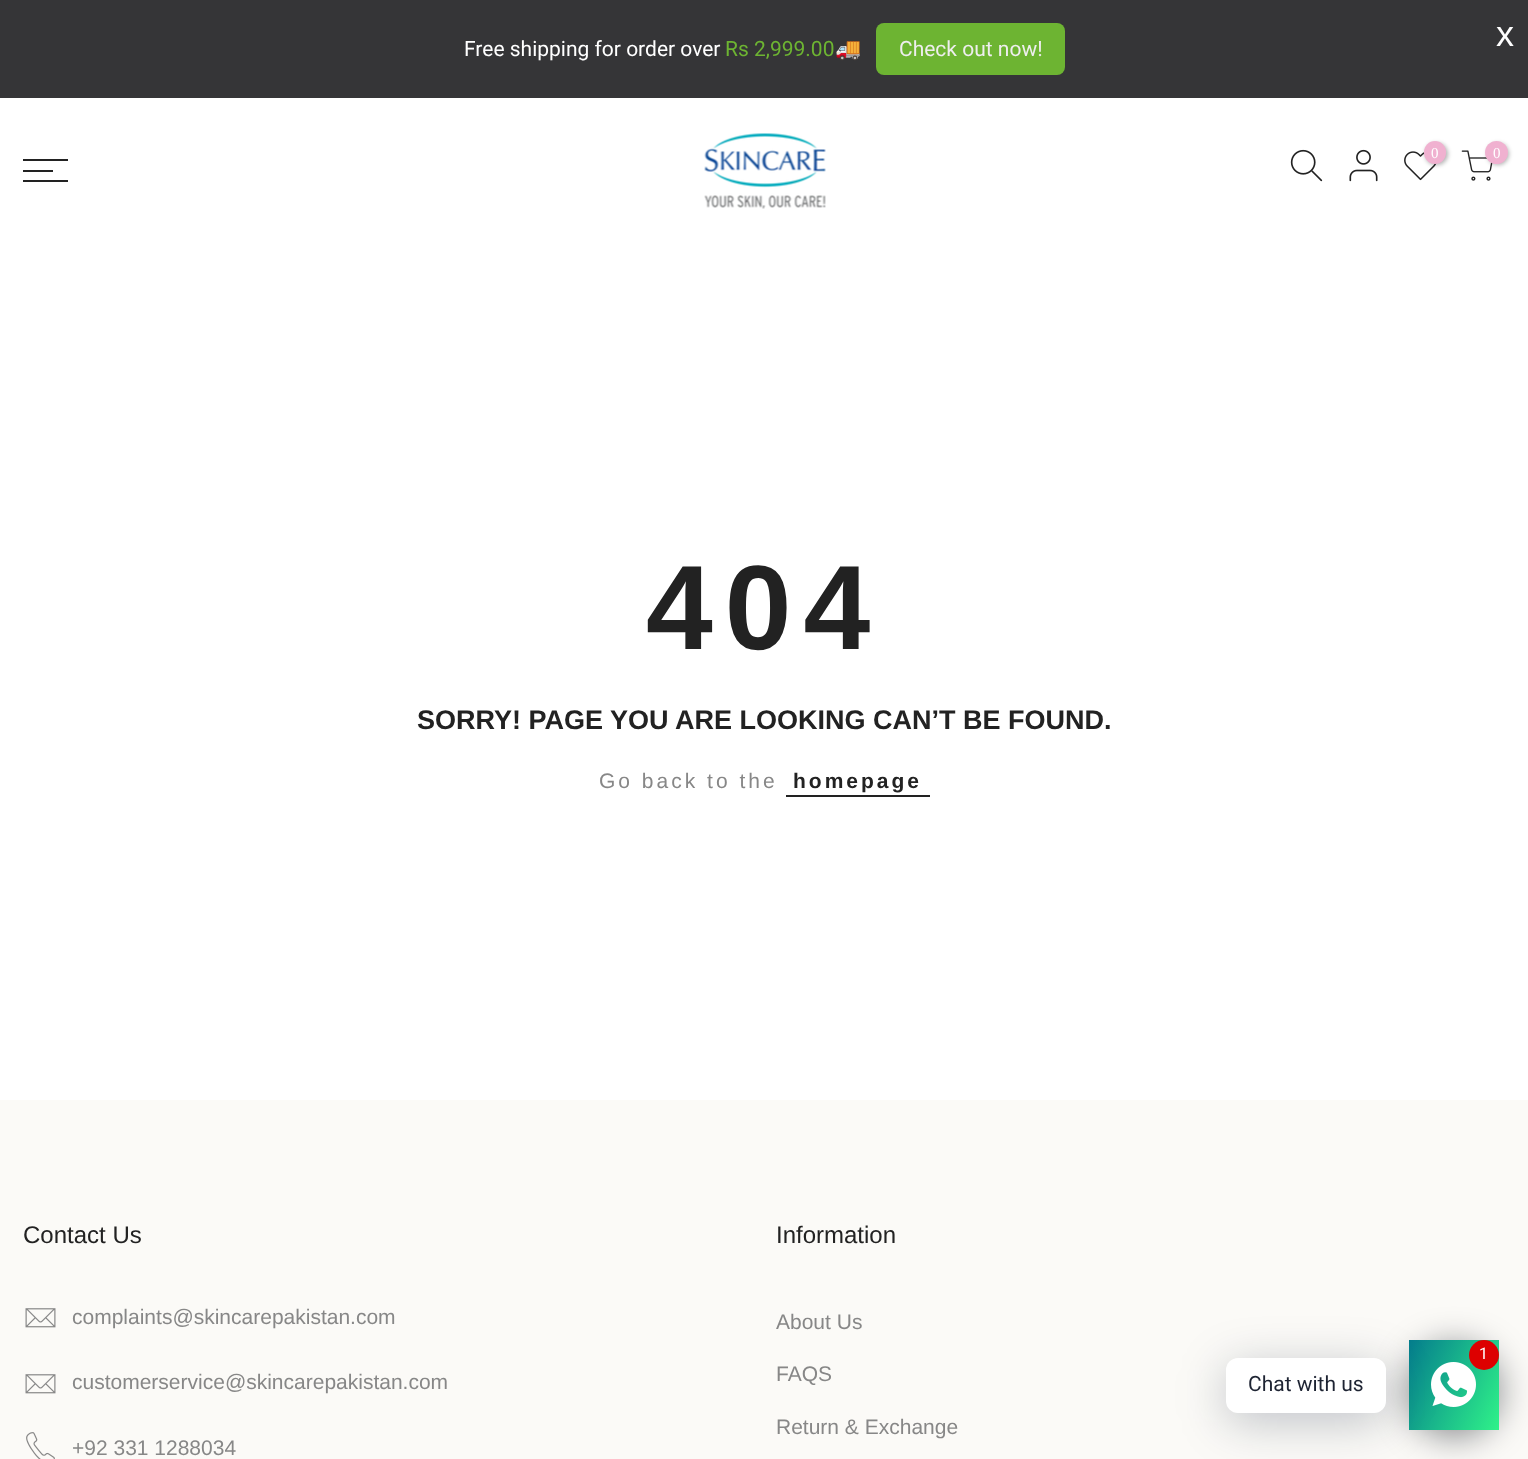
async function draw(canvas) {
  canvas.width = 1528;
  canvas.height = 1459;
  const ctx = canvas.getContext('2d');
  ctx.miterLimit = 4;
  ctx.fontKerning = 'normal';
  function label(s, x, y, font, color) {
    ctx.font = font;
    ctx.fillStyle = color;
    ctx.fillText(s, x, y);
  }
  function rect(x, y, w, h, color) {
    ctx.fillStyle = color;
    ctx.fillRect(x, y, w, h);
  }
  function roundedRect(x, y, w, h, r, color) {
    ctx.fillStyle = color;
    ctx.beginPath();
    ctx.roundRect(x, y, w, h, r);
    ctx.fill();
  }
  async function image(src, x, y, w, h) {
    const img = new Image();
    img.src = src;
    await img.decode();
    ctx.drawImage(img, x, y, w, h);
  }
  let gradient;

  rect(0, 0, 1528, 1459, '#fff');
  rect(0, 0, 1528, 98, '#353537');
  label('Free shipping for order over', 464, 56, '21px Roboto', '#fff');
  label('Rs 2,999.00', 725, 56, '21px Roboto', '#6db432');
  label('🚚', 835, 56, '21px Noto Color Emoji', '#fff');
  roundedRect(876, 23, 189, 52, 8, '#6db432');
  label('Check out now!', 899, 56, '21px Roboto', '#eee');
  label('x', 1496, 46, '36px Liberation Sans', '#fff');
  await image('assets/img1.png', 704, 133, 122, 76);
  await image('assets/img2.png', 1290, 149, 33, 33);
  await image('assets/img3.png', 1349, 149, 29, 33);
  await image('assets/img4.png', 1404, 151, 33, 30);
  ctx.fillStyle = '#0000004d';
  ctx.filter = 'blur(2px)';
  ctx.beginPath();
  ctx.roundRect(1425, 143, 23, 22, 11);
  ctx.fill();
  ctx.filter = 'none';
  roundedRect(1424, 141, 22, 23, 11, '#f0b1d0');
  label('0', 1431, 158, '15px Liberation Serif', '#fff');
  await image('assets/img5.png', 1461, 150, 32, 31);
  ctx.fillStyle = '#0000004d';
  ctx.filter = 'blur(2px)';
  ctx.beginPath();
  ctx.roundRect(1487, 143, 22, 22, 11);
  ctx.fill();
  ctx.filter = 'none';
  ctx.fillStyle = '#f0b1d0';
  ctx.beginPath();
  ctx.arc(1496.5, 152.5, 11.5, 0, 2 * Math.PI);
  ctx.fill();
  label('0', 1493, 158, '15px Liberation Serif', '#fff');
  rect(23, 159, 45, 2, '#222');
  rect(23, 170, 30, 2, '#222');
  rect(23, 180, 45, 2, '#222');
  ctx.letterSpacing = '12px';
  label('404', 646, 649, 'bold 120px Liberation Sans', '#222');
  ctx.letterSpacing = '0px';
  label('SORRY! PAGE YOU ARE LOOKING CAN’T BE FOUND.', 417, 729, 'bold 27px Liberation Sans', '#222');
  ctx.letterSpacing = '3px';
  label('Go back to the', 599, 788, '21px Liberation Sans', '#878787');
  label('homepage', 793, 788, 'bold 21px Liberation Sans', '#222');
  rect(786, 795, 144, 2, '#222');
  rect(0, 1100, 1528, 359, '#fbfaf7');
  ctx.letterSpacing = '0px';
  label('Contact Us', 23, 1243, '24px Liberation Sans', '#222');
  await image('assets/img6.png', 25, 1308, 31, 20);
  label('complaints@skincarepakistan.com', 72, 1324, '21px Liberation Sans', '#878787');
  await image('assets/img6.png', 25, 1374, 31, 20);
  label('customerservice@skincarepakistan.com', 72, 1389, '21px Liberation Sans', '#878787');
  await image('assets/img7.png', 26, 1432, 29, 27);
  label('+92 331 1288034', 72, 1455, '21px Liberation Sans', '#878787');
  label('Information', 776, 1243, '24px Liberation Sans', '#222');
  label('About Us', 776, 1329, '21px Liberation Sans', '#878787');
  label('FAQS', 776, 1381, '21px Liberation Sans', '#878787');
  label('Return & Exchange', 776, 1434, '21px Liberation Sans', '#878787');
  ctx.fillStyle = '#02061080';
  ctx.filter = 'blur(18px)';
  ctx.beginPath();
  ctx.roundRect(1409, 1346, 90, 90, 45);
  ctx.fill();
  ctx.filter = 'none';
  gradient = ctx.createLinearGradient(1399, 1359, 1508, 1410);
  gradient.addColorStop(0, '#047c8d');
  gradient.addColorStop(1, '#2ff289');
  ctx.fillStyle = gradient;
  ctx.fillRect(1409, 1340, 90, 90);
  ctx.fillStyle = '#00122e3d';
  ctx.filter = 'blur(24px)';
  ctx.beginPath();
  ctx.roundRect(1226, 1367, 160, 55, 12);
  ctx.fill();
  ctx.filter = 'none';
  await image('assets/img8.png', 1431, 1362, 45, 45);
  ctx.fillStyle = '#d00';
  ctx.beginPath();
  ctx.arc(1484, 1355, 15, 0, 2 * Math.PI);
  ctx.fill();
  label('1', 1479, 1359, '16px Roboto', '#fff');
  roundedRect(1226, 1358, 160, 55, 12, '#fff');
  label('Chat with us', 1248, 1391, '21px Roboto', '#1e2433');
}

draw(document.querySelector('canvas'));
